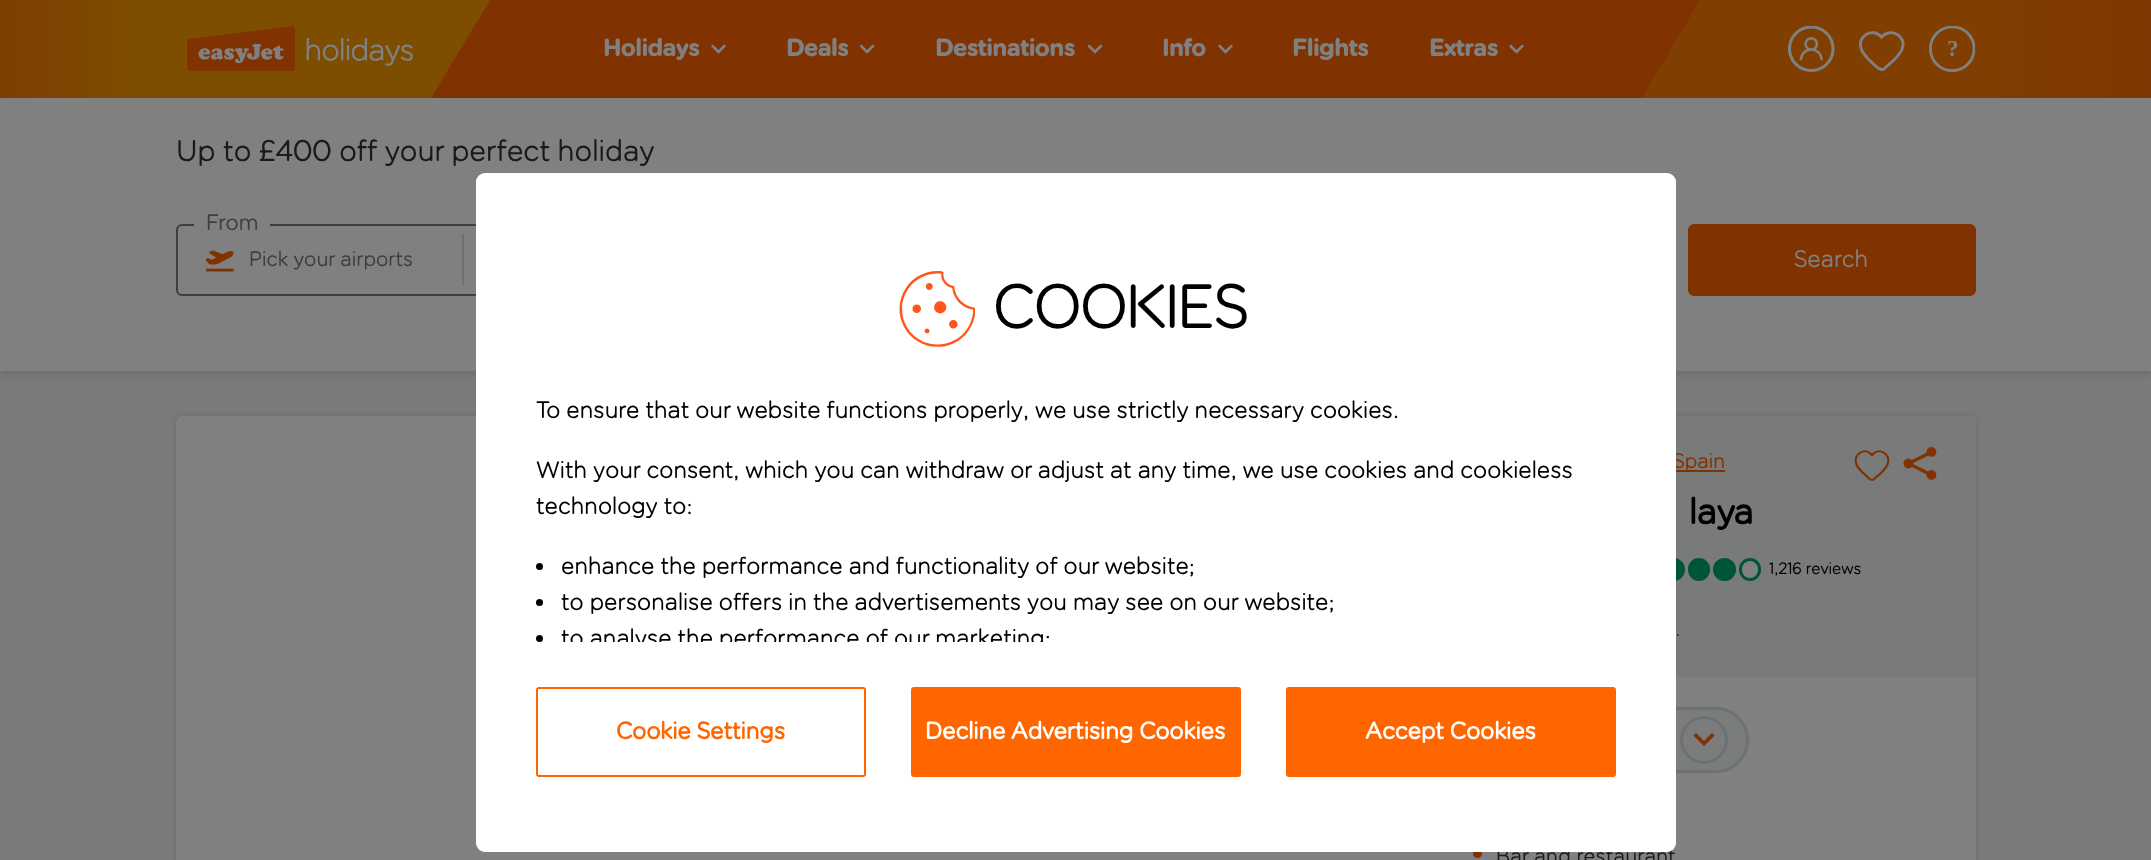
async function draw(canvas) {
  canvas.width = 2151;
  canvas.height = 860;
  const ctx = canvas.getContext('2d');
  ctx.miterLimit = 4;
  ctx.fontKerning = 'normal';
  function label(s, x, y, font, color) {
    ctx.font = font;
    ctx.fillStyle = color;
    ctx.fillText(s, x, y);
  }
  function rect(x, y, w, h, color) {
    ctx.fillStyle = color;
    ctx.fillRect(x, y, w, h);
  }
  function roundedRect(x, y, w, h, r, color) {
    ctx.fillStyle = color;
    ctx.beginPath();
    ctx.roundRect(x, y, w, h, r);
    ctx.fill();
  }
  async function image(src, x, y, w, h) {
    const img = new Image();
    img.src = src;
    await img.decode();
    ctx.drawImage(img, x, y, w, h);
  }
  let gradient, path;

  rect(0, 0, 2151, 860, '#797b7b');
  rect(431, 0, 1269, 98, '#803300');
  gradient = ctx.createLinearGradient(461, 49, -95, 49);
  gradient.addColorStop(0.58, '#7d4d00');
  gradient.addColorStop(1, '#803300');
  ctx.fillStyle = gradient;
  path = new Path2D('M-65 0H490L431 98H-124Z');
  ctx.fill(path);
  gradient = ctx.createLinearGradient(1671, 49, 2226, 49);
  gradient.addColorStop(0.51, '#803f00');
  gradient.addColorStop(1, '#803300');
  ctx.fillStyle = gradient;
  path = new Path2D('M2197 98H1642L1700 0H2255Z');
  ctx.fill(path);
  await image('assets/img1.png', 187, 26, 226, 45);
  label('Holidays', 603, 56, 'bold 24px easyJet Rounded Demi', '#808080');
  await image('assets/img2.png', 711, 44, 15, 10);
  label('Deals', 786, 56, 'bold 24px easyJet Rounded Demi', '#808080');
  await image('assets/img3.png', 860, 44, 15, 10);
  label('Destinations', 935, 56, 'bold 24px easyJet Rounded Demi', '#808080');
  await image('assets/img3.png', 1088, 44, 15, 10);
  label('Info', 1162, 56, 'bold 24px easyJet Rounded Demi', '#808080');
  await image('assets/img2.png', 1218, 44, 15, 10);
  label('Flights', 1292, 56, 'bold 24px easyJet Rounded Demi', '#808080');
  label('Extras', 1429, 56, 'bold 24px easyJet Rounded Demi', '#808080');
  await image('assets/img2.png', 1509, 44, 15, 10);
  await image('assets/img4.png', 1788, 26, 47, 46);
  path = new Path2D('M1884.5 68.5C1881 72 1877 67 1874.5 65C1870 60.5 1864 56 1861.5 49.5C1856 36.5 1872.5 26.5 1881.5 37C1891 26.5 1907.5 36.5 1902 49.5C1898.5 57.5 1890.5 63 1884.5 68.5Z');
  ctx.strokeStyle = '#808080';
  ctx.lineWidth = 2.9;
  ctx.stroke(path);
  await image('assets/img5.png', 1929, 26, 47, 46);
  ctx.fillStyle = '#4c4a4a4d';
  ctx.filter = 'blur(3px)';
  ctx.beginPath();
  ctx.rect(0, 101, 2151, 273);
  ctx.fill();
  ctx.filter = 'none';
  rect(0, 98, 2151, 273, '#808080');
  label('Up to £400 off your perfect holiday', 176, 161, '30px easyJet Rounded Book', '#1a1a1a');
  ctx.beginPath();
  ctx.roundRect(177, 225, 346, 70, 5);
  ctx.strokeStyle = '#3e3e3e';
  ctx.lineWidth = 2;
  ctx.stroke();
  rect(194, 224, 76, 2, '#808080');
  label('From', 206, 230, '22.5px easyJet Rounded Book', '#3e3e3e');
  await image('assets/img6.png', 206, 250, 28, 22);
  label('Pick your airports', 249, 266, '21px easyJet Rounded Book', '#3e3e3e');
  rect(462, 234, 2, 51, '#6d7172');
  roundedRect(1688, 224, 288, 72, 6, '#803300');
  label('Search', 1794, 267, '24px easyJet Rounded Book', '#808080');
  ctx.fillStyle = '#59585880';
  ctx.filter = 'blur(3px)';
  ctx.beginPath();
  ctx.roundRect(176, 416, 1800, 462, 9);
  ctx.fill();
  ctx.filter = 'none';
  roundedRect(176, 416, 1800, 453, 9, '#808080');
  path = new Path2D('M184 416H1436V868H184C179.5 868 176 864.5 176 860V424C176 419.5 179.5 416 184 416Z');
  ctx.fill(path);
  rect(1676, 416, 300, 261, '#797b7b');
  rect(1673, 470, 52, 2, '#803300');
  label('Spain', 1673, 468, '21px easyJet Rounded Book', '#803300');
  label('laya', 1689, 524, 'bold 36px easyJet Rounded Book', '#000');
  path = new Path2D('M1874 479C1871.5 481.5 1868.5 478 1866.5 476C1863 473 1858.5 469.5 1856.5 464.5C1852 454.5 1865 446.5 1872 455C1879 446.5 1892 454.5 1887.5 464.5C1885 470.5 1879 475 1874 479Z');
  ctx.strokeStyle = '#803300';
  ctx.lineWidth = 2.2;
  ctx.stroke(path);
  await image('assets/img7.png', 1903, 447, 34, 33);
  ctx.fillStyle = '#005536';
  ctx.beginPath();
  ctx.arc(1673.5, 569.5, 10, 0, 2 * Math.PI);
  ctx.fill();
  ctx.strokeStyle = '#005536';
  ctx.lineWidth = 3;
  ctx.stroke();
  ctx.beginPath();
  ctx.roundRect(1689.5, 559.5, 19, 20, 9.5);
  ctx.fill();
  ctx.stroke();
  ctx.beginPath();
  ctx.arc(1724.5, 569.5, 10, 0, 2 * Math.PI);
  ctx.fill();
  ctx.stroke();
  ctx.fillStyle = '#808080';
  ctx.beginPath();
  ctx.roundRect(1740.5, 559.5, 19, 20, 9.5);
  ctx.fill();
  ctx.stroke();
  label('1,216 reviews', 1769, 574, '16.5px easyJet Rounded Book', '#000');
  path = new Path2D('M1506 635H1678.5');
  ctx.strokeStyle = '#1a1a1a';
  ctx.lineWidth = 1.5;
  ctx.setLineDash([1.5, 1.5]);
  ctx.stroke(path);
  ctx.fillStyle = '#7b7c7c';
  ctx.beginPath();
  ctx.roundRect(1474.5, 708.5, 273, 63, 31.5);
  ctx.fill();
  ctx.strokeStyle = '#6c7173';
  ctx.lineWidth = 3;
  ctx.setLineDash([]);
  ctx.stroke();
  ctx.beginPath();
  ctx.arc(1704, 740, 22.5, 0, 2 * Math.PI);
  ctx.stroke();
  await image('assets/img8.png', 1693, 733, 22, 13);
  ctx.fillStyle = '#803300';
  ctx.beginPath();
  ctx.arc(1477.5, 853.5, 4.5, 0, 2 * Math.PI);
  ctx.fill();
  ctx.letterSpacing = '0.25px';
  label('Bar and restaurant', 1496, 863, '21px easyJet Rounded Book', '#1a1a1a');
  roundedRect(476, 173, 1200, 679, 9, '#fff');
  await image('assets/img9.png', 899, 271, 76, 76);
  ctx.letterSpacing = '0px';
  label('COOKIES', 993, 328, 'bold 60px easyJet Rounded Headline', '#000');
  label('To ensure that our website functions properly, we use strictly necessary cookies.', 536, 418, '24px easyJet Rounded Book', '#000');
  label('With your consent, which you can withdraw or adjust at any time, we use cookies and cookieless', 536, 478, '24px easyJet Rounded Book', '#000');
  label('technology to:', 536, 514, '24px easyJet Rounded Book', '#000');
  ctx.beginPath();
  ctx.arc(539.5, 566.5, 3.5, 0, 2 * Math.PI);
  ctx.fill();
  label('enhance the performance and functionality of our website;', 561, 574, '24px easyJet Rounded Book', '#000');
  ctx.beginPath();
  ctx.arc(539.5, 602.5, 3.5, 0, 2 * Math.PI);
  ctx.fill();
  label('to personalise offers in the advertisements you may see on our website;', 561, 610, '24px easyJet Rounded Book', '#000');
  ctx.beginPath();
  ctx.arc(539.5, 638.5, 3.5, 0, 2 * Math.PI);
  ctx.fill();
  ctx.save();
  ctx.beginPath();
  ctx.rect(536, 212, 1080, 430);
  ctx.clip();
  label('to analyse the performance of our marketing;', 561, 646, '24px easyJet Rounded Book', '#000');
  ctx.restore();
  ctx.beginPath();
  ctx.roundRect(537, 688, 328, 88, 2);
  ctx.strokeStyle = '#f60';
  ctx.lineWidth = 2;
  ctx.stroke();
  label('Cookie Settings', 616, 739, 'bold 24px easyJet Rounded Book', '#f60');
  ctx.beginPath();
  ctx.roundRect(912, 688, 328, 88, 2);
  ctx.fill();
  ctx.stroke();
  label('Decline Advertising Cookies', 925, 739, 'bold 24px easyJet Rounded Book', '#fff');
  ctx.fillStyle = '#f60';
  ctx.beginPath();
  ctx.roundRect(1287, 688, 328, 88, 2);
  ctx.fill();
  ctx.stroke();
  label('Accept Cookies', 1365, 739, 'bold 24px easyJet Rounded Book', '#fff');
}

draw(document.querySelector('canvas'));
